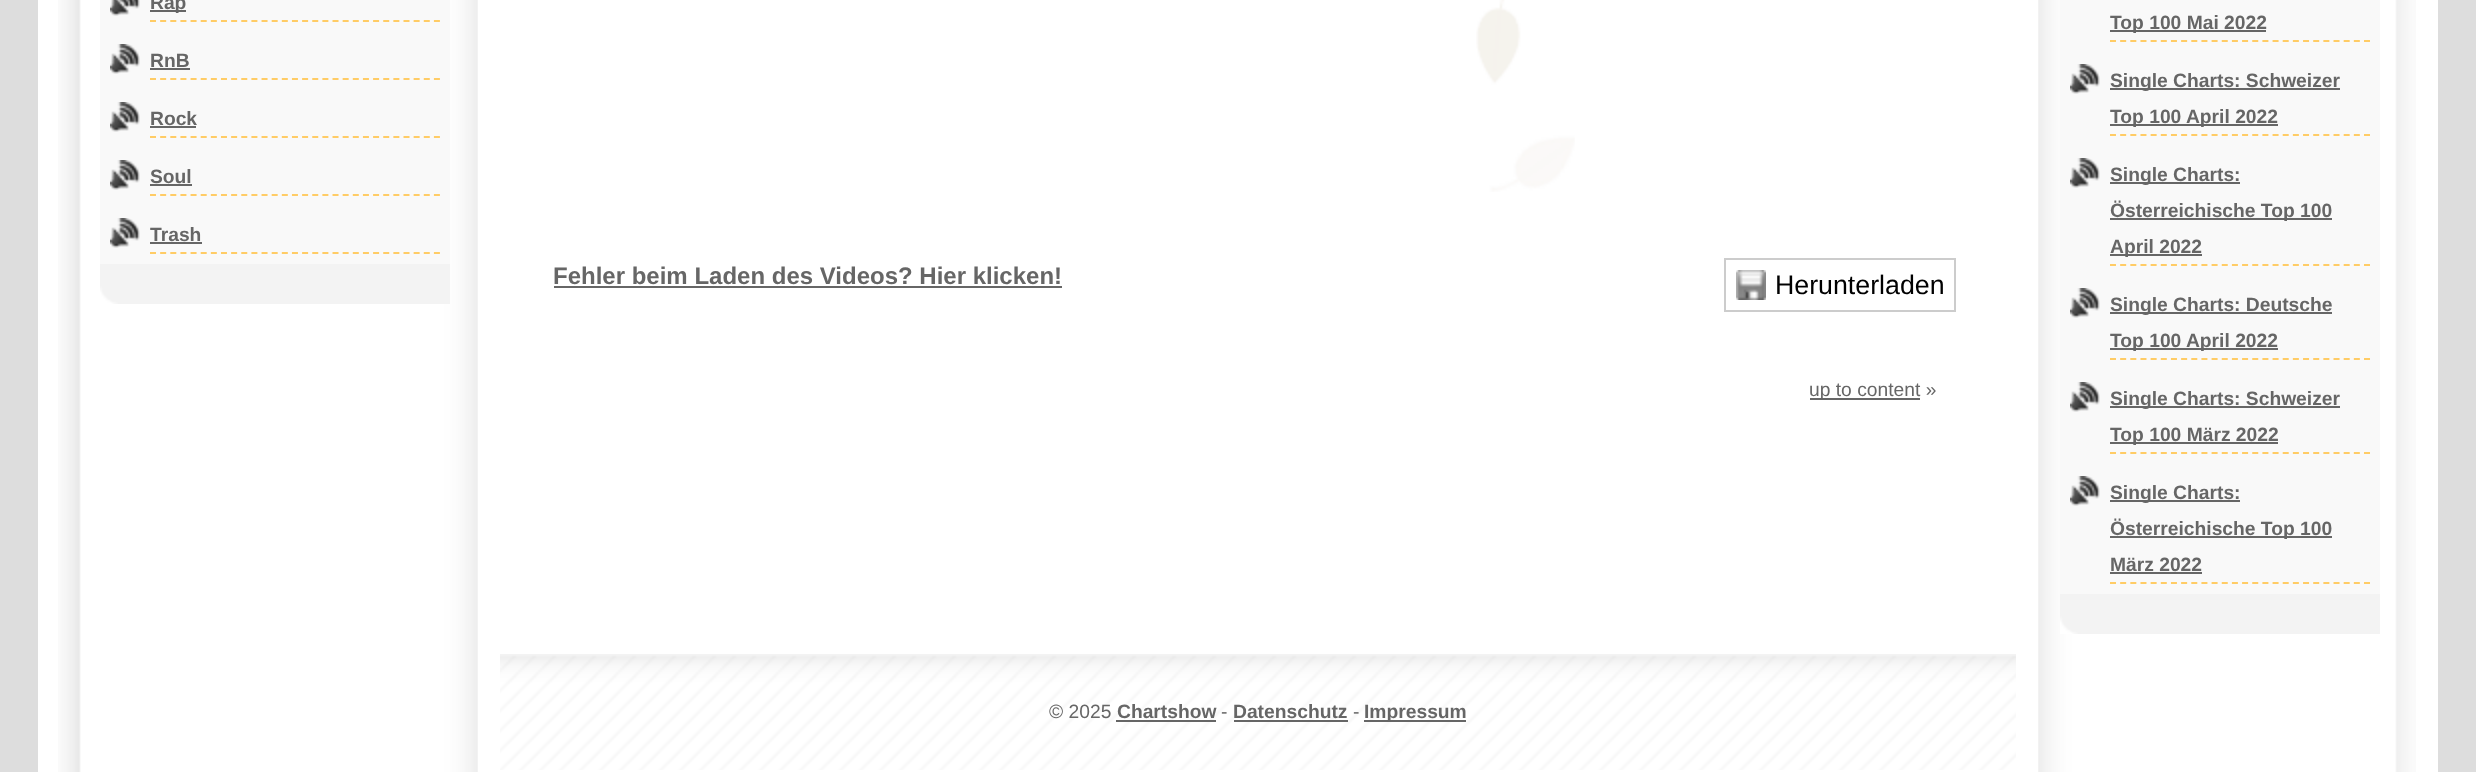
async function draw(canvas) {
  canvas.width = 2476;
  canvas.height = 772;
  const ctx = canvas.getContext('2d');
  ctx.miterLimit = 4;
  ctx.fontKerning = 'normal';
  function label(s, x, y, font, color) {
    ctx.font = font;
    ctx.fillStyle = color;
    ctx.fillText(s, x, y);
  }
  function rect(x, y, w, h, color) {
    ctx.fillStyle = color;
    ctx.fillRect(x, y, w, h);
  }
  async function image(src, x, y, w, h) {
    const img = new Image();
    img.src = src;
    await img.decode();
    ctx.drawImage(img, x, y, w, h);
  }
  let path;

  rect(0, 0, 2476, 772, '#ddd');
  rect(38, 0, 2400, 772, '#fff');
  await image('assets/img1.png', 58, 0, 420, 772);
  await image('assets/img2.png', 2038, 0, 378, 772);
  await image('assets/img3.png', 100, 264, 350, 40);
  rect(100, 0, 350, 264, '#f9f9f9');
  await image('assets/img4.png', 110, 0, 30, 16);
  path = new Path2D('M150 21H440');
  ctx.strokeStyle = '#fc6';
  ctx.lineWidth = 2;
  ctx.setLineDash([6, 4.14]);
  ctx.stroke(path);
  rect(150, 10, 36, 2, '#666');
  label('Rap', 150, 9, 'bold 19.25px Liberation Sans', '#666');
  await image('assets/img5.png', 110, 44, 30, 30);
  path = new Path2D('M150 79H440');
  ctx.stroke(path);
  label('RnB', 150, 67, 'bold 19.25px Liberation Sans', '#666');
  rect(150, 68, 40, 2, '#666');
  await image('assets/img5.png', 110, 102, 30, 30);
  path = new Path2D('M150 137H440');
  ctx.stroke(path);
  label('Rock', 150, 125, 'bold 19.25px Liberation Sans', '#666');
  rect(150, 126, 46, 2, '#666');
  await image('assets/img5.png', 110, 160, 30, 30);
  path = new Path2D('M150 195H440');
  ctx.stroke(path);
  label('Soul', 150, 183, 'bold 19.25px Liberation Sans', '#666');
  rect(150, 184, 42, 2, '#666');
  await image('assets/img5.png', 110, 218, 30, 30);
  path = new Path2D('M150 253H440');
  ctx.stroke(path);
  label('Trash', 150, 241, 'bold 19.25px Liberation Sans', '#666');
  rect(150, 242, 52, 2, '#666');
  await image('assets/img6.png', 1476, 0, 99, 192);
  label('Fehler beim Laden des Videos? Hier klicken!', 553, 284, 'bold 24px Liberation Sans', '#666');
  rect(554, 286, 508, 2, '#666');
  await image('assets/img7.png', 1736, 270, 30, 30);
  ctx.strokeStyle = '#ccc';
  ctx.setLineDash([]);
  ctx.strokeRect(1725, 259, 230, 52);
  label('Herunterladen', 1775, 294, '26.75px Liberation Sans', '#000');
  rect(1810, 398, 110, 2, '#666');
  label('up to content »', 1809, 396, '19.25px Liberation Sans', '#666');
  await image('assets/img8.png', 2060, 594, 320, 40);
  rect(2060, 0, 320, 594, '#f9f9f9');
  path = new Path2D('M2110 41H2370');
  ctx.strokeStyle = '#fc6';
  ctx.setLineDash([6, 4.16]);
  ctx.stroke(path);
  rect(2110, 30, 156, 2, '#666');
  label('Top 100 Mai 2022', 2110, 29, 'bold 19.25px Liberation Sans', '#666');
  await image('assets/img5.png', 2070, 64, 30, 30);
  path = new Path2D('M2110 135H2370');
  ctx.stroke(path);
  rect(2110, 88, 230, 2, '#666');
  label('Single Charts: Schweizer', 2110, 87, 'bold 19.25px Liberation Sans', '#666');
  rect(2110, 124, 168, 2, '#666');
  label('Top 100 April 2022', 2110, 123, 'bold 19.25px Liberation Sans', '#666');
  await image('assets/img5.png', 2070, 158, 30, 30);
  path = new Path2D('M2110 265H2370');
  ctx.stroke(path);
  rect(2110, 182, 130, 2, '#666');
  label('Single Charts:', 2110, 181, 'bold 19.25px Liberation Sans', '#666');
  rect(2110, 218, 222, 2, '#666');
  label('Österreichische Top 100', 2110, 217, 'bold 19.25px Liberation Sans', '#666');
  rect(2110, 254, 92, 2, '#666');
  label('April 2022', 2110, 253, 'bold 19.25px Liberation Sans', '#666');
  await image('assets/img5.png', 2070, 288, 30, 30);
  path = new Path2D('M2110 359H2370');
  ctx.stroke(path);
  rect(2110, 312, 222, 2, '#666');
  label('Single Charts: Deutsche', 2110, 311, 'bold 19.25px Liberation Sans', '#666');
  rect(2110, 348, 168, 2, '#666');
  label('Top 100 April 2022', 2110, 347, 'bold 19.25px Liberation Sans', '#666');
  await image('assets/img5.png', 2070, 382, 30, 30);
  path = new Path2D('M2110 453H2370');
  ctx.stroke(path);
  rect(2110, 406, 230, 2, '#666');
  label('Single Charts: Schweizer', 2110, 405, 'bold 19.25px Liberation Sans', '#666');
  rect(2110, 442, 168, 2, '#666');
  label('Top 100 März 2022', 2110, 441, 'bold 19.25px Liberation Sans', '#666');
  await image('assets/img5.png', 2070, 476, 30, 30);
  path = new Path2D('M2110 583H2370');
  ctx.stroke(path);
  rect(2110, 500, 130, 2, '#666');
  label('Single Charts:', 2110, 499, 'bold 19.25px Liberation Sans', '#666');
  rect(2110, 536, 222, 2, '#666');
  label('Österreichische Top 100', 2110, 535, 'bold 19.25px Liberation Sans', '#666');
  label('März 2022', 2110, 571, 'bold 19.25px Liberation Sans', '#666');
  rect(2110, 572, 92, 2, '#666');
  await image('assets/img9.png', 500, 654, 1516, 116);
  label('© 2025', 1049, 718, '19.25px Liberation Sans', '#666');
  label('Chartshow', 1117, 718, 'bold 19.25px Liberation Sans', '#666');
  rect(1116, 720, 100, 2, '#666');
  label('-', 1221, 718, '19.25px Liberation Sans', '#666');
  label('Datenschutz', 1233, 718, 'bold 19.25px Liberation Sans', '#666');
  rect(1234, 720, 114, 2, '#666');
  label('-', 1353, 718, '19.25px Liberation Sans', '#666');
  rect(1364, 720, 102, 2, '#666');
  label('Impressum', 1364, 718, 'bold 19.25px Liberation Sans', '#666');
}

draw(document.querySelector('canvas'));
